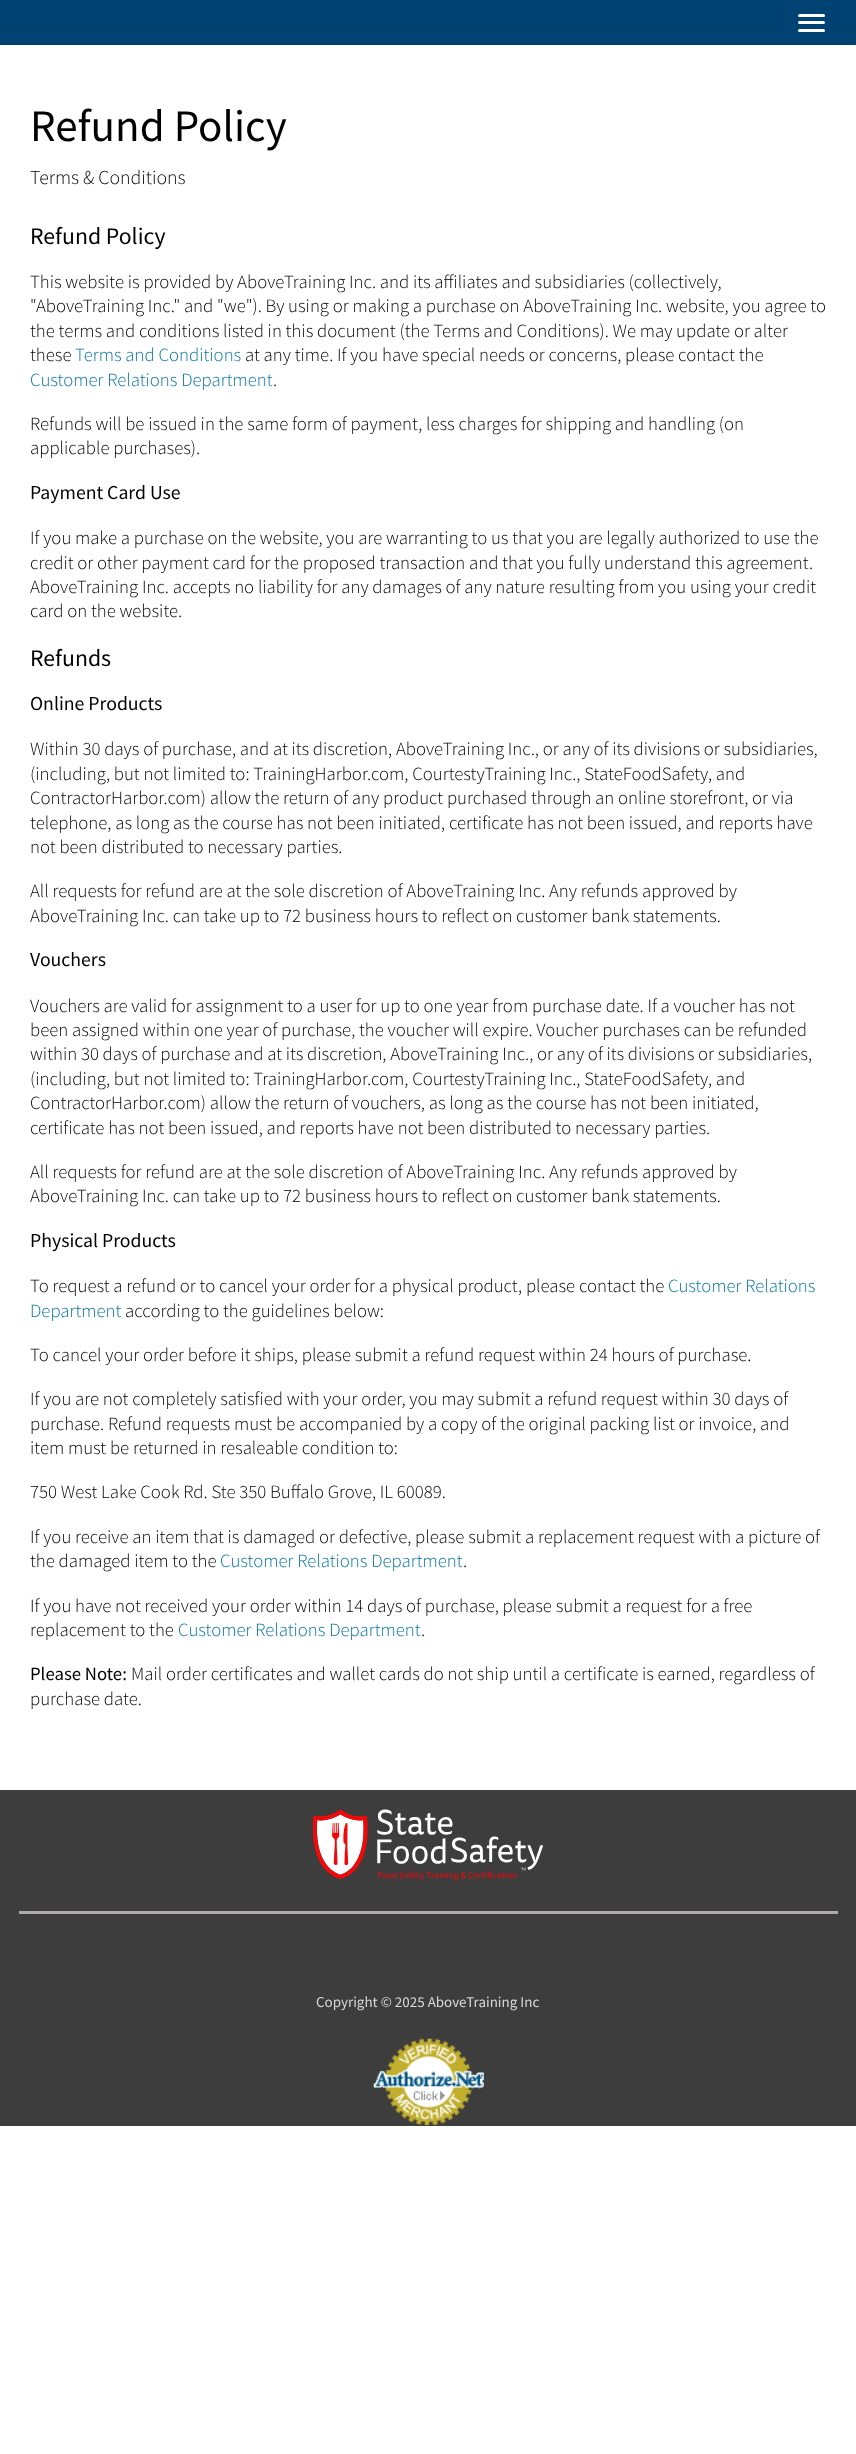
async function draw(canvas) {
  canvas.width = 856;
  canvas.height = 2454;
  const ctx = canvas.getContext('2d');
  ctx.miterLimit = 4;
  ctx.fontKerning = 'normal';
  function label(s, x, y, font, color) {
    ctx.font = font;
    ctx.fillStyle = color;
    ctx.fillText(s, x, y);
  }
  function rect(x, y, w, h, color) {
    ctx.fillStyle = color;
    ctx.fillRect(x, y, w, h);
  }
  function roundedRect(x, y, w, h, r, color) {
    ctx.fillStyle = color;
    ctx.beginPath();
    ctx.roundRect(x, y, w, h, r);
    ctx.fill();
  }
  async function image(src, x, y, w, h) {
    const img = new Image();
    img.src = src;
    await img.decode();
    ctx.drawImage(img, x, y, w, h);
  }

  rect(0, 0, 856, 2454, '#fff');
  rect(0, 0, 856, 45, '#004373');
  roundedRect(798, 14, 27, 3, 1.5, '#fff');
  roundedRect(798, 21, 27, 3, 1.5, '#fff');
  roundedRect(798, 29, 27, 3, 1.5, '#fff');
  label('Refund Policy', 30, 141, '45px Source Sans Pro', '#000');
  label('Terms & Conditions', 30, 184, '300 19.75px Source Sans Pro', '#000');
  label('Refund Policy', 30, 244, '23.75px Source Sans Pro', '#000');
  label('This website is provided by AboveTraining Inc. and its affiliates and subsidiaries (collectively,', 30, 288, '300 18.75px Source Sans Pro', '#000');
  label('"AboveTraining Inc." and "we"). By using or making a purchase on AboveTraining Inc. website, you agree to', 30, 312, '300 18.75px Source Sans Pro', '#000');
  label('the terms and conditions listed in this document (the Terms and Conditions). We may update or alter', 30, 337, '300 18.75px Source Sans Pro', '#000');
  label('these', 30, 361, '300 18.75px Source Sans Pro', '#000');
  label('Terms and Conditions', 75, 361, '300 18.75px Source Sans Pro', '#0375a3');
  label('at any time. If you have special needs or concerns, please contact the', 245, 361, '300 18.75px Source Sans Pro', '#000');
  label('Customer Relations Department', 30, 386, '300 18.75px Source Sans Pro', '#0375a3');
  label('.', 273, 386, '300 18.75px Source Sans Pro', '#000');
  label('Refunds will be issued in the same form of payment, less charges for shipping and handling (on', 30, 430, '300 18.75px Source Sans Pro', '#000');
  label('applicable purchases).', 30, 454, '300 18.75px Source Sans Pro', '#000');
  label('Payment Card Use', 30, 499, '19.75px Source Sans Pro', '#000');
  label('If you make a purchase on the website, you are warranting to us that you are legally authorized to use the', 30, 544, '300 18.75px Source Sans Pro', '#000');
  label('credit or other payment card for the proposed transaction and that you fully understand this agreement.', 30, 569, '300 18.75px Source Sans Pro', '#000');
  label('AboveTraining Inc. accepts no liability for any damages of any nature resulting from you using your credit', 30, 593, '300 18.75px Source Sans Pro', '#000');
  label('card on the website.', 30, 617, '300 18.75px Source Sans Pro', '#000');
  label('Refunds', 30, 666, '23.75px Source Sans Pro', '#000');
  label('Online Products', 30, 710, '19.75px Source Sans Pro', '#000');
  label('Within 30 days of purchase, and at its discretion, AboveTraining Inc., or any of its divisions or subsidiaries,', 30, 755, '300 18.75px Source Sans Pro', '#000');
  label('(including, but not limited to: TrainingHarbor.com, CourtestyTraining Inc., StateFoodSafety, and', 30, 780, '300 18.75px Source Sans Pro', '#000');
  label('ContractorHarbor.com) allow the return of any product purchased through an online storefront, or via', 30, 804, '300 18.75px Source Sans Pro', '#000');
  label('telephone, as long as the course has not been initiated, certificate has not been issued, and reports have', 30, 829, '300 18.75px Source Sans Pro', '#000');
  label('not been distributed to necessary parties.', 30, 853, '300 18.75px Source Sans Pro', '#000');
  label('All requests for refund are at the sole discretion of AboveTraining Inc. Any refunds approved by', 30, 897, '300 18.75px Source Sans Pro', '#000');
  label('AboveTraining Inc. can take up to 72 business hours to reflect on customer bank statements.', 30, 922, '300 18.75px Source Sans Pro', '#000');
  label('Vouchers', 30, 966, '19.75px Source Sans Pro', '#000');
  label('Vouchers are valid for assignment to a user for up to one year from purchase date. If a voucher has not', 30, 1012, '300 18.75px Source Sans Pro', '#000');
  label('been assigned within one year of purchase, the voucher will expire. Voucher purchases can be refunded', 30, 1036, '300 18.75px Source Sans Pro', '#000');
  label('within 30 days of purchase and at its discretion, AboveTraining Inc., or any of its divisions or subsidiaries,', 30, 1060, '300 18.75px Source Sans Pro', '#000');
  label('(including, but not limited to: TrainingHarbor.com, CourtestyTraining Inc., StateFoodSafety, and', 30, 1085, '300 18.75px Source Sans Pro', '#000');
  label('ContractorHarbor.com) allow the return of vouchers, as long as the course has not been initiated,', 30, 1109, '300 18.75px Source Sans Pro', '#000');
  label('certificate has not been issued, and reports have not been distributed to necessary parties.', 30, 1134, '300 18.75px Source Sans Pro', '#000');
  label('All requests for refund are at the sole discretion of AboveTraining Inc. Any refunds approved by', 30, 1178, '300 18.75px Source Sans Pro', '#000');
  label('AboveTraining Inc. can take up to 72 business hours to reflect on customer bank statements.', 30, 1202, '300 18.75px Source Sans Pro', '#000');
  label('Physical Products', 30, 1247, '19.75px Source Sans Pro', '#000');
  label('To request a refund or to cancel your order for a physical product, please contact the', 30, 1292, '300 18.75px Source Sans Pro', '#000');
  label('Customer Relations', 668, 1292, '300 18.75px Source Sans Pro', '#0375a3');
  label('Department', 30, 1317, '300 18.75px Source Sans Pro', '#0375a3');
  label('according to the guidelines below:', 125, 1317, '300 18.75px Source Sans Pro', '#000');
  label('To cancel your order before it ships, please submit a refund request within 24 hours of purchase.', 30, 1361, '300 18.75px Source Sans Pro', '#000');
  label('If you are not completely satisfied with your order, you may submit a refund request within 30 days of', 30, 1405, '300 18.75px Source Sans Pro', '#000');
  label('purchase. Refund requests must be accompanied by a copy of the original packing list or invoice, and', 30, 1430, '300 18.75px Source Sans Pro', '#000');
  label('item must be returned in resaleable condition to:', 30, 1454, '300 18.75px Source Sans Pro', '#000');
  label('750 West Lake Cook Rd. Ste 350 Buffalo Grove, IL 60089.', 30, 1498, '300 18.75px Source Sans Pro', '#000');
  label('If you receive an item that is damaged or defective, please submit a replacement request with a picture of', 30, 1543, '300 18.75px Source Sans Pro', '#000');
  label('the damaged item to the', 30, 1567, '300 18.75px Source Sans Pro', '#000');
  label('Customer Relations Department', 220, 1567, '300 18.75px Source Sans Pro', '#0375a3');
  label('.', 463, 1567, '300 18.75px Source Sans Pro', '#000');
  label('If you have not received your order within 14 days of purchase, please submit a request for a free', 30, 1612, '300 18.75px Source Sans Pro', '#000');
  label('replacement to the', 30, 1636, '300 18.75px Source Sans Pro', '#000');
  label('Customer Relations Department', 178, 1636, '300 18.75px Source Sans Pro', '#0375a3');
  label('.', 421, 1636, '300 18.75px Source Sans Pro', '#000');
  label('Please Note:', 30, 1680, '18.75px Source Sans Pro', '#000');
  label('Mail order certificates and wallet cards do not ship until a certificate is earned, regardless of', 131, 1680, '300 18.75px Source Sans Pro', '#000');
  label('purchase date.', 30, 1705, '300 18.75px Source Sans Pro', '#000');
  rect(0, 1790, 856, 336, '#3d3d3d');
  await image('assets/img1.png', 313, 1809, 230, 72);
  rect(19, 1911, 819, 3, '#aeabaa');
  label('Copyright © 2025 AboveTraining Inc', 316, 2007, '15px Source Sans Pro', '#d8d8d8');
  await image('assets/img2.png', 373, 2038, 111, 88);
}

draw(document.querySelector('canvas'));
